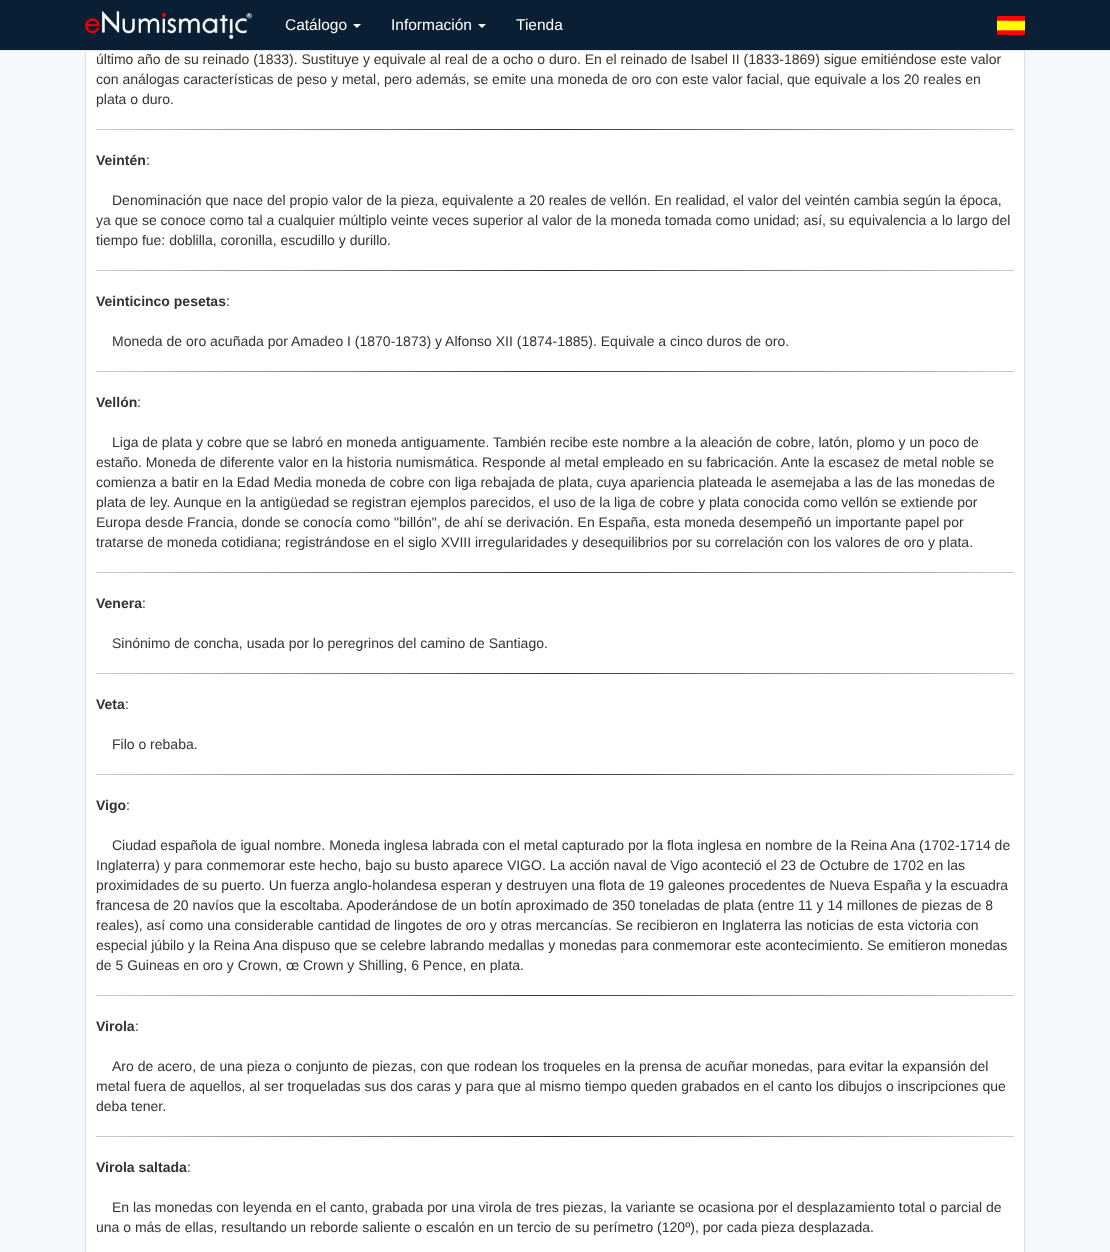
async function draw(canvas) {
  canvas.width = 1110;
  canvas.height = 1252;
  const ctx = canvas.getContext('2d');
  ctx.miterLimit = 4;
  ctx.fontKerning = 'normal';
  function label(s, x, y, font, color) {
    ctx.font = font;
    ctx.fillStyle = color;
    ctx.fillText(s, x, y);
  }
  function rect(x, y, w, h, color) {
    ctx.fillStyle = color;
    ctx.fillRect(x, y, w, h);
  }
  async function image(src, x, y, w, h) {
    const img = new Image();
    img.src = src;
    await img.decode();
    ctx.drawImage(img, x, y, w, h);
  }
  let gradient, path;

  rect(0, 0, 1110, 1252, '#f5f9fd');
  rect(86, 51, 938, 1201, '#fff');
  ctx.strokeStyle = '#ddd';
  ctx.strokeRect(85.5, -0.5, 939, 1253);
  rect(0, 0, 1110, 50, '#0a1e34');
  rect(0, 50, 1110, 1, '#e7e7e7');
  await image('assets/img1.png', 85, 11, 168, 29);
  label('Catálogo', 285, 30, '15.5px Liberation Sans', '#fff');
  path = new Path2D('M353 24H361L357 28Z');
  ctx.fill(path);
  label('Información', 391, 30, '15.5px Liberation Sans', '#fff');
  path = new Path2D('M478 24H486L482 28Z');
  ctx.fill(path);
  label('Tienda', 516, 30, '15.5px Liberation Sans', '#fff');
  await image('assets/img2.png', 997, 16, 28, 20);
  label('último año de su reinado (1833). Sustituye y equivale al real de a ocho o duro. En el reinado de Isabel II (1833-1869) sigue emitiéndose este valor', 96, 64, '14px Liberation Sans', '#333');
  label('con análogas características de peso y metal, pero además, se emite una moneda de oro con este valor facial, que equivale a los 20 reales en', 96, 84, '14px Liberation Sans', '#333');
  label('plata o duro.', 96, 104, '14px Liberation Sans', '#333');
  gradient = ctx.createLinearGradient(96, 130, 1014, 129);
  gradient.addColorStop(0, '#ccc');
  gradient.addColorStop(0.5, '#333');
  gradient.addColorStop(1, '#ccc');
  ctx.fillStyle = gradient;
  ctx.fillRect(96, 129, 918, 1);
  label('Veintén', 96, 165, 'bold 14px Liberation Sans', '#333');
  label(':', 146, 165, '14px Liberation Sans', '#333');
  label('Denominación que nace del propio valor de la pieza, equivalente a 20 reales de vellón. En realidad, el valor del veintén cambia según la época,', 112, 205, '14px Liberation Sans', '#333');
  label('ya que se conoce como tal a cualquier múltiplo veinte veces superior al valor de la moneda tomada como unidad; así, su equivalencia a lo largo del', 96, 225, '14px Liberation Sans', '#333');
  label('tiempo fue: doblilla, coronilla, escudillo y durillo.', 96, 245, '14px Liberation Sans', '#333');
  gradient = ctx.createLinearGradient(96, 271, 1014, 271);
  gradient.addColorStop(0, '#ccc');
  gradient.addColorStop(0.5, '#333');
  gradient.addColorStop(1, '#ccc');
  ctx.fillStyle = gradient;
  ctx.fillRect(96, 270, 918, 1);
  label('Veinticinco pesetas', 96, 306, 'bold 14px Liberation Sans', '#333');
  label(':', 226, 306, '14px Liberation Sans', '#333');
  label('Moneda de oro acuñada por Amadeo I (1870-1873) y Alfonso XII (1874-1885). Equivale a cinco duros de oro.', 112, 346, '14px Liberation Sans', '#333');
  gradient = ctx.createLinearGradient(96, 372, 1014, 372);
  gradient.addColorStop(0, '#ccc');
  gradient.addColorStop(0.5, '#333');
  gradient.addColorStop(1, '#ccc');
  ctx.fillStyle = gradient;
  ctx.fillRect(96, 371, 918, 1);
  label('Vellón', 96, 407, 'bold 14px Liberation Sans', '#333');
  label(':', 137, 407, '14px Liberation Sans', '#333');
  label('Liga de plata y cobre que se labró en moneda antiguamente. También recibe este nombre a la aleación de cobre, latón, plomo y un poco de', 112, 447, '14px Liberation Sans', '#333');
  label('estaño. Moneda de diferente valor en la historia numismática. Responde al metal empleado en su fabricación. Ante la escasez de metal noble se', 96, 467, '14px Liberation Sans', '#333');
  label('comienza a batir en la Edad Media moneda de cobre con liga rebajada de plata, cuya apariencia plateada le asemejaba a las de las monedas de', 96, 487, '14px Liberation Sans', '#333');
  label('plata de ley. Aunque en la antigüedad se registran ejemplos parecidos, el uso de la liga de cobre y plata conocida como vellón se extiende por', 96, 507, '14px Liberation Sans', '#333');
  label('Europa desde Francia, donde se conocía como "billón", de ahí se derivación. En España, esta moneda desempeñó un importante papel por', 96, 527, '14px Liberation Sans', '#333');
  label('tratarse de moneda cotidiana; registrándose en el siglo XVIII irregularidades y desequilibrios por su correlación con los valores de oro y plata.', 96, 547, '14px Liberation Sans', '#333');
  gradient = ctx.createLinearGradient(96, 573, 1014, 573);
  gradient.addColorStop(0, '#ccc');
  gradient.addColorStop(0.5, '#333');
  gradient.addColorStop(1, '#ccc');
  ctx.fillStyle = gradient;
  ctx.fillRect(96, 572, 918, 1);
  label('Venera', 96, 608, 'bold 14px Liberation Sans', '#333');
  label(':', 142, 608, '14px Liberation Sans', '#333');
  label('Sinónimo de concha, usada por lo peregrinos del camino de Santiago.', 112, 648, '14px Liberation Sans', '#333');
  gradient = ctx.createLinearGradient(96, 674, 1014, 674);
  gradient.addColorStop(0, '#ccc');
  gradient.addColorStop(0.5, '#333');
  gradient.addColorStop(1, '#ccc');
  ctx.fillStyle = gradient;
  ctx.fillRect(96, 673, 918, 1);
  label('Veta', 96, 709, 'bold 14px Liberation Sans', '#333');
  label(':', 125, 709, '14px Liberation Sans', '#333');
  label('Filo o rebaba.', 112, 749, '14px Liberation Sans', '#333');
  gradient = ctx.createLinearGradient(96, 775, 1014, 775);
  gradient.addColorStop(0, '#ccc');
  gradient.addColorStop(0.5, '#333');
  gradient.addColorStop(1, '#ccc');
  ctx.fillStyle = gradient;
  ctx.fillRect(96, 774, 918, 1);
  label('Vigo', 96, 810, 'bold 14px Liberation Sans', '#333');
  label(':', 126, 810, '14px Liberation Sans', '#333');
  label('Ciudad española de igual nombre. Moneda inglesa labrada con el metal capturado por la flota inglesa en nombre de la Reina Ana (1702-1714 de', 112, 850, '14px Liberation Sans', '#333');
  label('Inglaterra) y para conmemorar este hecho, bajo su busto aparece VIGO. La acción naval de Vigo aconteció el 23 de Octubre de 1702 en las', 96, 870, '14px Liberation Sans', '#333');
  label('proximidades de su puerto. Un fuerza anglo-holandesa esperan y destruyen una flota de 19 galeones procedentes de Nueva España y la escuadra', 96, 890, '14px Liberation Sans', '#333');
  label('francesa de 20 navíos que la escoltaba. Apoderándose de un botín aproximado de 350 toneladas de plata (entre 11 y 14 millones de piezas de 8', 96, 910, '14px Liberation Sans', '#333');
  label('reales), así como una considerable cantidad de lingotes de oro y otras mercancías. Se recibieron en Inglaterra las noticias de esta victoria con', 96, 930, '14px Liberation Sans', '#333');
  label('especial júbilo y la Reina Ana dispuso que se celebre labrando medallas y monedas para conmemorar este acontecimiento. Se emitieron monedas', 96, 950, '14px Liberation Sans', '#333');
  label('de 5 Guineas en oro y Crown, œ Crown y Shilling, 6 Pence, en plata.', 96, 970, '14px Liberation Sans', '#333');
  gradient = ctx.createLinearGradient(96, 996, 1014, 996);
  gradient.addColorStop(0, '#ccc');
  gradient.addColorStop(0.5, '#333');
  gradient.addColorStop(1, '#ccc');
  ctx.fillStyle = gradient;
  ctx.fillRect(96, 995, 918, 1);
  label('Virola', 96, 1031, 'bold 14px Liberation Sans', '#333');
  label(':', 135, 1031, '14px Liberation Sans', '#333');
  label('Aro de acero, de una pieza o conjunto de piezas, con que rodean los troqueles en la prensa de acuñar monedas, para evitar la expansión del', 112, 1071, '14px Liberation Sans', '#333');
  label('metal fuera de aquellos, al ser troqueladas sus dos caras y para que al mismo tiempo queden grabados en el canto los dibujos o inscripciones que', 96, 1091, '14px Liberation Sans', '#333');
  label('deba tener.', 96, 1111, '14px Liberation Sans', '#333');
  gradient = ctx.createLinearGradient(96, 1137, 1014, 1137);
  gradient.addColorStop(0, '#ccc');
  gradient.addColorStop(0.5, '#333');
  gradient.addColorStop(1, '#ccc');
  ctx.fillStyle = gradient;
  ctx.fillRect(96, 1136, 918, 1);
  label('Virola saltada', 96, 1172, 'bold 14px Liberation Sans', '#333');
  label(':', 187, 1172, '14px Liberation Sans', '#333');
  label('En las monedas con leyenda en el canto, grabada por una virola de tres piezas, la variante se ocasiona por el desplazamiento total o parcial de', 112, 1212, '14px Liberation Sans', '#333');
  label('una o más de ellas, resultando un reborde saliente o escalón en un tercio de su perímetro (120º), por cada pieza desplazada.', 96, 1232, '14px Liberation Sans', '#333');
}

draw(document.querySelector('canvas'));
